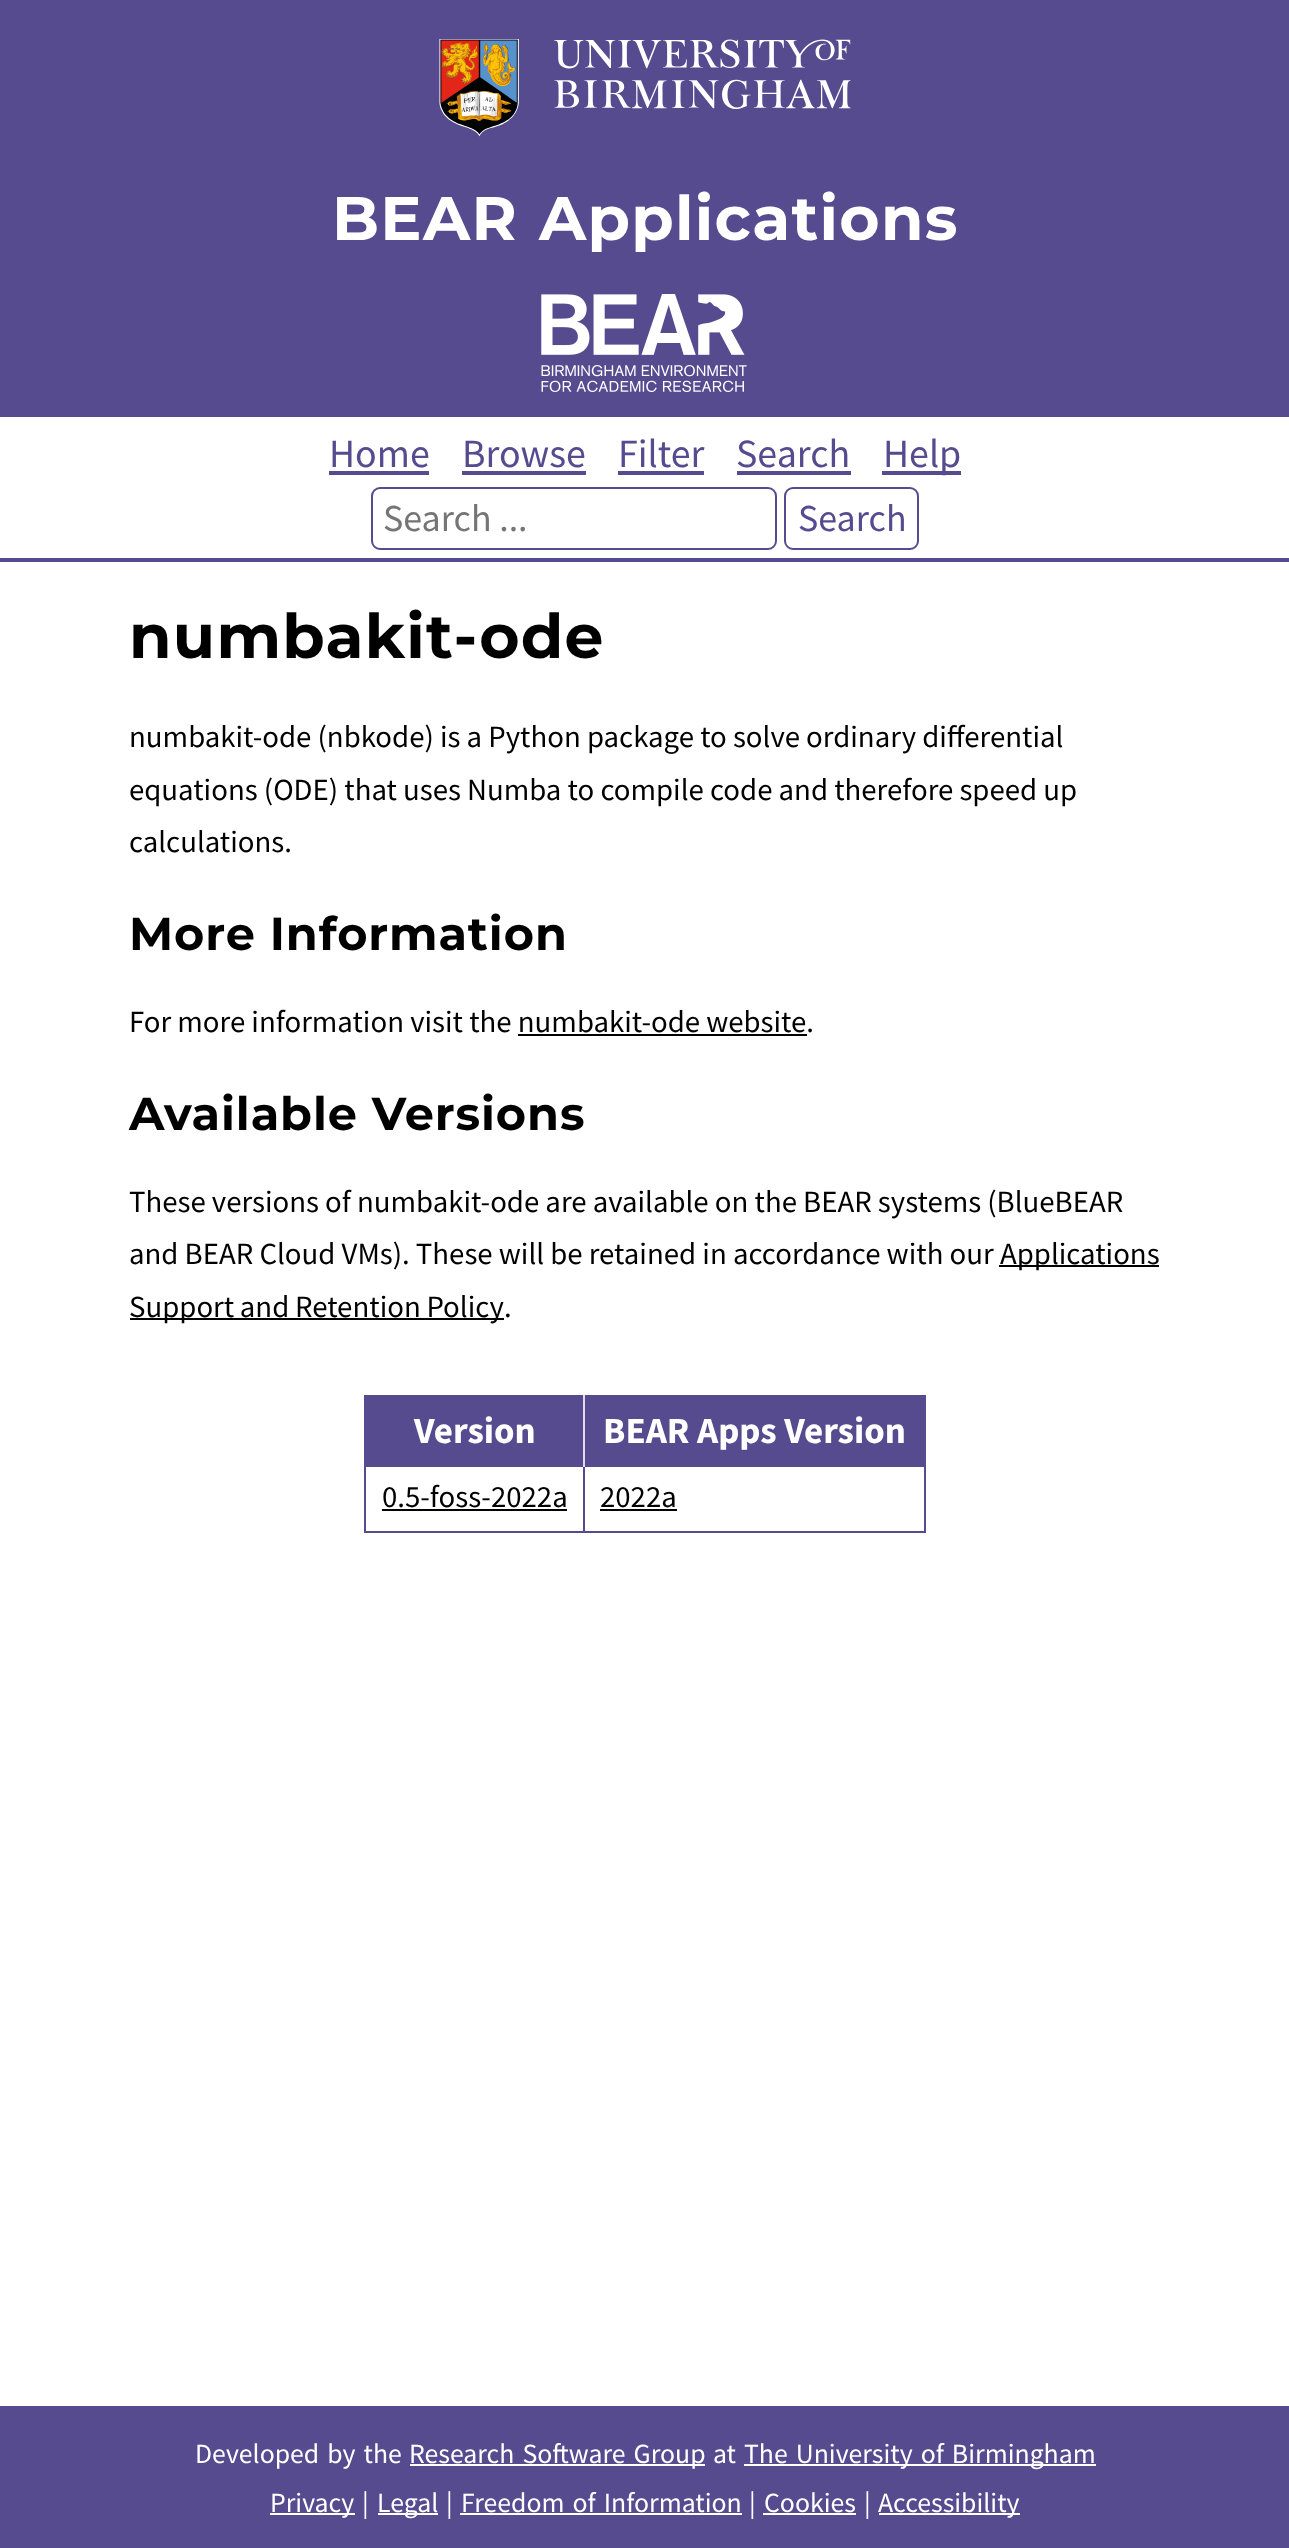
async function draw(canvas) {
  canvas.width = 1289;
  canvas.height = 2548;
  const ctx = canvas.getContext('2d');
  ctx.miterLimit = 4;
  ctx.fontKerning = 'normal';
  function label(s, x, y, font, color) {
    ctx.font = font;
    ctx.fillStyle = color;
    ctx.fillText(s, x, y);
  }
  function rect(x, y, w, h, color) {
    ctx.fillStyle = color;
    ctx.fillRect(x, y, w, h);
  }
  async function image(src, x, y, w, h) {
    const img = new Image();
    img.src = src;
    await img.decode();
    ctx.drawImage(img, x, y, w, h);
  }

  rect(0, 0, 1289, 2548, '#fff');
  rect(0, 0, 1289, 417, '#574b90');
  await image('assets/img1.png', 439, 39, 412, 98);
  ctx.letterSpacing = '1.25px';
  ctx.wordSpacing = '2.5px';
  label('BEAR Applications', 332, 240, 'bold 61.6px Montserrat', '#fff');
  await image('assets/img2.png', 541, 294, 206, 98);
  rect(0, 558, 1289, 4, '#574b90');
  ctx.letterSpacing = '0px';
  ctx.wordSpacing = '0px';
  label('Home', 329, 467, '40px Source Sans Pro', '#574b90');
  rect(329, 471, 100, 4, '#574b90');
  label('Browse', 462, 467, '40px Source Sans Pro', '#574b90');
  rect(462, 471, 124, 4, '#574b90');
  label('Filter', 618, 467, '40px Source Sans Pro', '#574b90');
  rect(618, 471, 86, 4, '#574b90');
  label('Search', 736, 467, '40px Source Sans Pro', '#574b90');
  rect(737, 471, 114, 4, '#574b90');
  rect(882, 471, 79, 4, '#574b90');
  label('Help', 883, 467, '40px Source Sans Pro', '#574b90');
  ctx.beginPath();
  ctx.roundRect(372, 488, 404, 61, 8);
  ctx.strokeStyle = '#574b90';
  ctx.lineWidth = 2;
  ctx.stroke();
  label('Search ...', 383, 531, '38px Source Sans Pro', '#757575');
  ctx.beginPath();
  ctx.roundRect(785, 488, 133, 61, 8);
  ctx.stroke();
  label('Search', 798, 531, '38px Source Sans Pro', '#574b90');
  ctx.letterSpacing = '1.25px';
  label('numbakit-ode', 129, 658, 'bold 61.6px Montserrat', '#000');
  ctx.letterSpacing = '0px';
  label('numbakit-ode (nbkode) is a Python package to solve ordinary differential', 129, 747, '30.8px Source Sans Pro', '#000');
  label('equations (ODE) that uses Numba to compile code and therefore speed up', 129, 800, '30.8px Source Sans Pro', '#000');
  label('calculations.', 129, 852, '30.8px Source Sans Pro', '#000');
  ctx.letterSpacing = '0.9px';
  label('More Information', 129, 950, 'bold 46.25px Montserrat', '#000');
  ctx.letterSpacing = '0px';
  label('For more information visit the numbakit-ode website.', 129, 1032, '30.8px Source Sans Pro', '#000');
  rect(518, 1034, 289, 2, '#000');
  ctx.letterSpacing = '0.9px';
  label('Available Versions', 129, 1130, 'bold 46.25px Montserrat', '#000');
  ctx.letterSpacing = '0px';
  label('These versions of numbakit-ode are available on the BEAR systems (BlueBEAR', 129, 1212, '30.8px Source Sans Pro', '#000');
  label('and BEAR Cloud VMs). These will be retained in accordance with our', 129, 1264, '30.8px Source Sans Pro', '#000');
  rect(999, 1265, 160, 2, '#000');
  label('Applications', 1000, 1264, '30.8px Source Sans Pro', '#000');
  rect(130, 1318, 374, 2, '#000');
  ctx.wordSpacing = '-0.5px';
  label('Support and Retention Policy', 129, 1317, '30.8px Source Sans Pro', '#000');
  ctx.wordSpacing = '0px';
  label('.', 504, 1317, '30.8px Source Sans Pro', '#000');
  rect(364, 1395, 562, 2, '#574b90');
  rect(924, 1395, 2, 138, '#574b90');
  rect(364, 1531, 562, 2, '#574b90');
  rect(364, 1395, 2, 138, '#574b90');
  rect(366, 1397, 217, 68, '#574b90');
  label('Version', 414, 1443, 'bold 37px Source Sans Pro', '#fff');
  rect(585, 1397, 339, 68, '#574b90');
  rect(583, 1465, 343, 2, '#574b90');
  rect(583, 1465, 2, 68, '#574b90');
  rect(364, 1465, 221, 2, '#574b90');
  rect(583, 1395, 2, 72, '#e5d9f2');
  label('BEAR Apps Version', 603, 1443, 'bold 37px Source Sans Pro', '#fff');
  label('0.5-foss-2022a', 382, 1507, '30.8px Source Sans Pro', '#000');
  rect(382, 1509, 185, 2, '#000');
  label('2022a', 600, 1507, '30.8px Source Sans Pro', '#000');
  rect(600, 1509, 77, 2, '#000');
  rect(0, 2406, 1289, 142, '#574b90');
  ctx.wordSpacing = '2.5px';
  label('Developed by the', 195, 2463, '27.75px Source Sans Pro', '#fff');
  rect(410, 2464, 295, 2, '#fff');
  label('Research Software Group', 409, 2463, '27.75px Source Sans Pro', '#fff');
  ctx.wordSpacing = '0px';
  label('at', 713, 2463, '27.75px Source Sans Pro', '#fff');
  rect(744, 2464, 352, 2, '#fff');
  ctx.wordSpacing = '2.5px';
  label('The University of Birmingham', 744, 2463, '27.75px Source Sans Pro', '#fff');
  rect(270, 2513, 85, 2, '#fff');
  ctx.wordSpacing = '0px';
  label('Privacy', 270, 2512, '27.75px Source Sans Pro', '#fff');
  label('|', 362, 2512, '27.75px Source Sans Pro', '#fff');
  rect(378, 2513, 60, 2, '#fff');
  label('Legal', 377, 2512, '27.75px Source Sans Pro', '#fff');
  label('|', 446, 2512, '27.75px Source Sans Pro', '#fff');
  ctx.wordSpacing = '2.5px';
  label('Freedom of Information', 461, 2512, '27.75px Source Sans Pro', '#fff');
  rect(460, 2513, 282, 2, '#fff');
  ctx.wordSpacing = '0px';
  label('|', 749, 2512, '27.75px Source Sans Pro', '#fff');
  label('Cookies', 764, 2512, '27.75px Source Sans Pro', '#fff');
  rect(763, 2513, 93, 2, '#fff');
  label('|', 864, 2512, '27.75px Source Sans Pro', '#fff');
  rect(879, 2513, 141, 2, '#fff');
  label('Accessibility', 878, 2512, '27.75px Source Sans Pro', '#fff');
}

draw(document.querySelector('canvas'));
